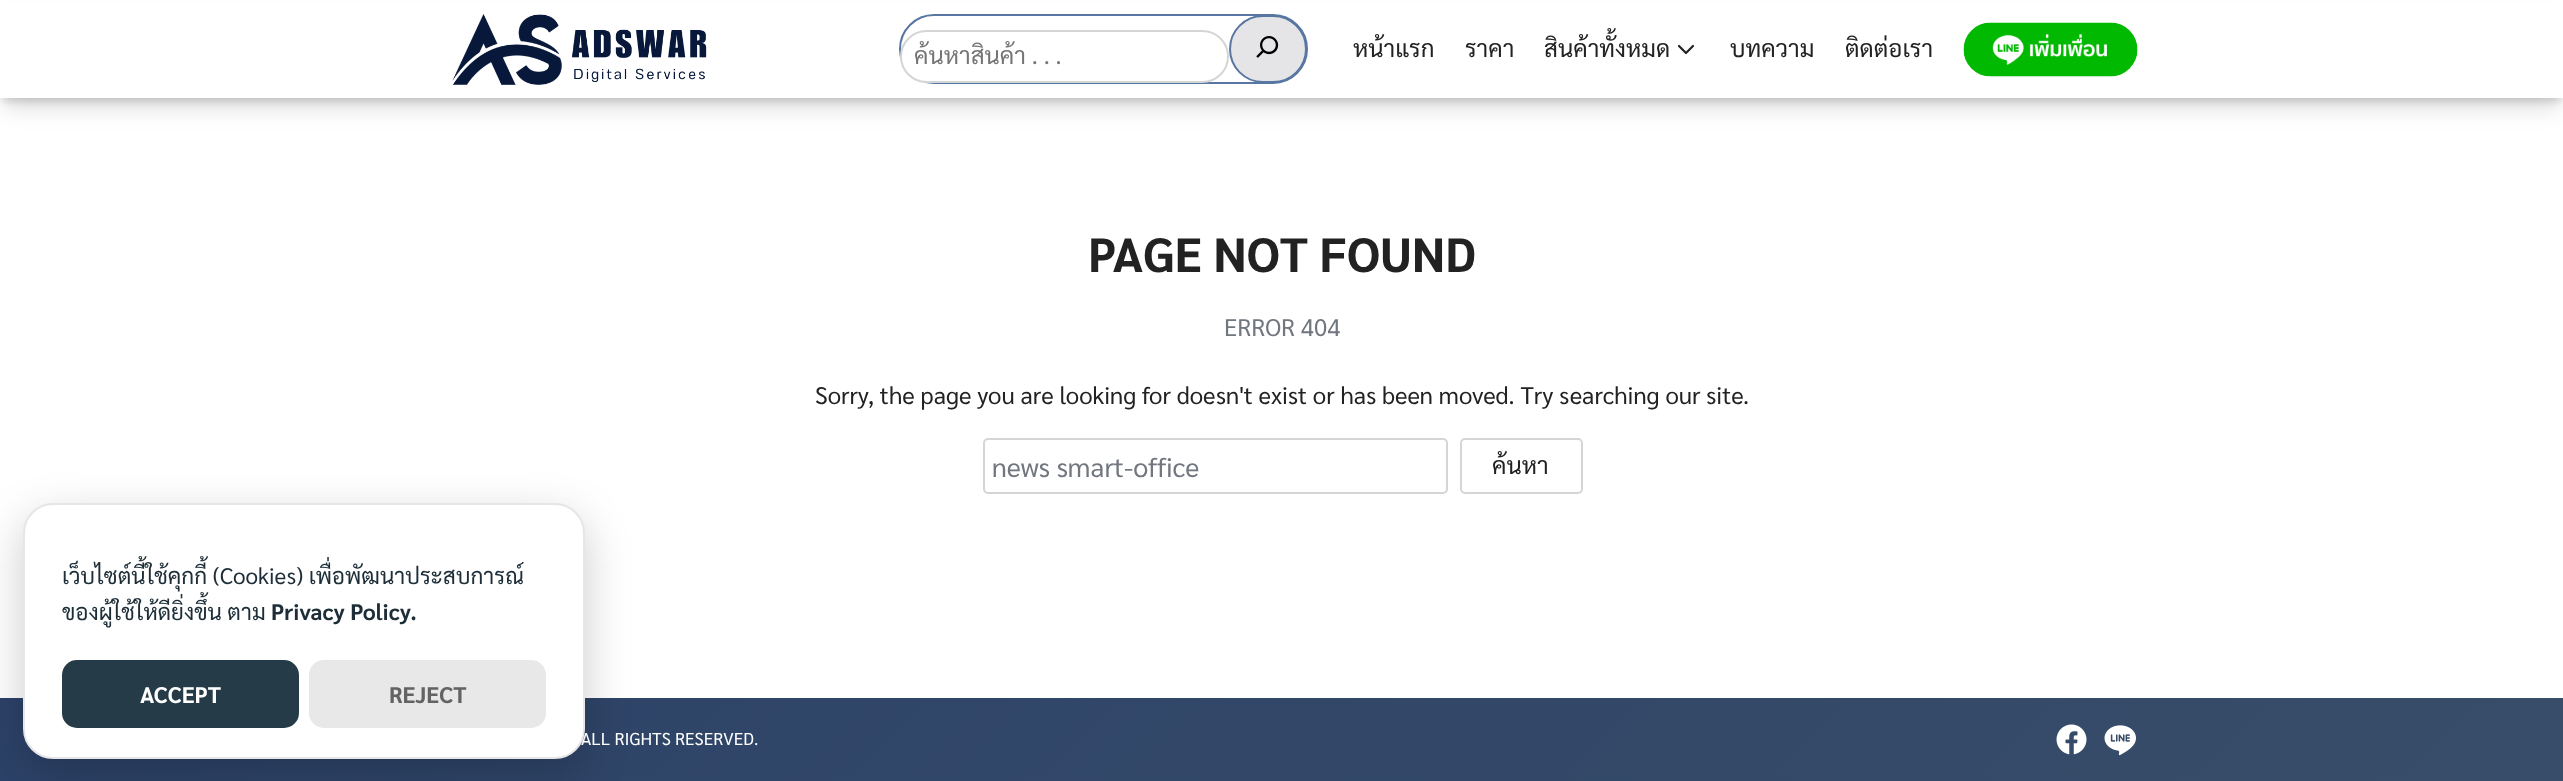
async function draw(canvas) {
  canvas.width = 2563;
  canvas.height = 781;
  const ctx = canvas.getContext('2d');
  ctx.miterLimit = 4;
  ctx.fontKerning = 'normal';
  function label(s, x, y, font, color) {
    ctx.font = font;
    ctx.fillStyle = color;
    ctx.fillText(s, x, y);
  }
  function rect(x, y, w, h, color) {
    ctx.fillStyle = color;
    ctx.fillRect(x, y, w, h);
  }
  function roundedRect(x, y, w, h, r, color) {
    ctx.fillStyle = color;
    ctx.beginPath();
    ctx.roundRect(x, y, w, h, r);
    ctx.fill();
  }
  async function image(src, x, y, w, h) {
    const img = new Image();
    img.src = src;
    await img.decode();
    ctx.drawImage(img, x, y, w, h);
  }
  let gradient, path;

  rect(0, 0, 2563, 781, '#fff');
  gradient = ctx.createLinearGradient(620, 78, 1944, 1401);
  gradient.addColorStop(0, '#2c4268');
  gradient.addColorStop(1, '#384d69');
  ctx.fillStyle = gradient;
  ctx.fillRect(0, 698, 2563, 83);
  ctx.fillStyle = '#02020333';
  ctx.filter = 'blur(22.5px)';
  ctx.beginPath();
  ctx.roundRect(23, 518, 562, 256, 30);
  ctx.fill();
  ctx.filter = 'none';
  ctx.fillStyle = '#fff';
  ctx.beginPath();
  ctx.roundRect(24, 504, 560, 254, 29);
  ctx.fill();
  ctx.strokeStyle = '#e6e6e6';
  ctx.lineWidth = 2;
  ctx.stroke();
  label('เว็บไซต์นี้ใช้คุกกี้ (Cookies) เพื่อพัฒนาประสบการณ์', 62, 584, '22.5px Sarabun', '#1d2e38');
  label('ของผู้ใช้ให้ดียิ่งขึ้น ตาม', 62, 620, '22.5px Sarabun', '#1d2e38');
  label('Privacy Policy.', 271, 620, 'bold 22.5px Sarabun', '#1d2e38');
  roundedRect(62, 660, 237, 68, 15, '#253b48');
  label('ACCEPT', 140, 703, 'bold 22.5px Sarabun', '#fff');
  roundedRect(309, 660, 237, 68, 15, '#e8e8e8');
  label('REJECT', 389, 703, 'bold 22.5px Sarabun', '#636363');
  ctx.fillStyle = '#00000029';
  ctx.filter = 'blur(4.5px)';
  ctx.beginPath();
  ctx.rect(3, 9, 2558, 92);
  ctx.fill();
  ctx.filter = 'none';
  ctx.fillStyle = '#00000021';
  ctx.filter = 'blur(11px)';
  ctx.beginPath();
  ctx.rect(5, 20, 2554, 88);
  ctx.fill();
  ctx.filter = 'none';
  rect(0, 1, 2563, 97, '#fff');
  await image('assets/img1.png', 452, 14, 255, 71);
  ctx.beginPath();
  ctx.roundRect(900, 15, 407, 68, 34);
  ctx.strokeStyle = '#5876a2';
  ctx.stroke();
  ctx.beginPath();
  ctx.roundRect(901, 31, 327, 51, 25.5);
  ctx.fill();
  ctx.strokeStyle = '#d5d5d7';
  ctx.stroke();
  ctx.save();
  ctx.beginPath();
  ctx.rect(914, 39, 279, 32);
  ctx.clip();
  label('ค้นหาสินค้า . . .', 914, 64, '24px Sarabun', '#757575');
  ctx.restore();
  ctx.fillStyle = '#e5e5e7';
  ctx.beginPath();
  ctx.roundRect(1230, 16, 76, 66, 33);
  ctx.fill();
  ctx.strokeStyle = '#5876a2';
  ctx.stroke();
  await image('assets/img2.png', 1256, 36, 23, 22);
  label('หน้าแรก', 1353, 57, '24px Sarabun', '#222');
  label('ราคา', 1465, 57, '24px Sarabun', '#222');
  label('สินค้าทั้งหมด', 1544, 57, '24px Sarabun', '#222');
  path = new Path2D('M1679 46L1686 53L1693 46');
  ctx.strokeStyle = '#222';
  ctx.lineWidth = 2.2;
  ctx.lineCap = 'round';
  ctx.lineJoin = 'round';
  ctx.stroke(path);
  label('บทความ', 1730, 57, '24px Sarabun', '#222');
  label('ติดต่อเรา', 1845, 57, '24px Sarabun', '#222');
  await image('assets/img3.png', 1963, 22, 175, 55);
  label('PAGE NOT FOUND', 1088, 272, 'bold 48px Sarabun', '#222');
  label('ERROR 404', 1224, 336, '24px Sarabun', '#71767f');
  label('Sorry, the page you are looking for doesn\'t exist or has been moved. Try searching our site.', 815, 404, '24px Sarabun', '#222');
  ctx.beginPath();
  ctx.roundRect(984, 439, 463, 54, 4);
  ctx.strokeStyle = '#d5d5d7';
  ctx.lineWidth = 2;
  ctx.lineJoin = 'miter';
  ctx.stroke();
  label('news smart-office', 992, 477, '27px Sarabun', '#71767f');
  ctx.beginPath();
  ctx.roundRect(1461, 439, 121, 54, 4);
  ctx.stroke();
  label('ค้นหา', 1492, 474, '24px Sarabun', '#222');
  label('ALL RIGHTS RESERVED.', 581, 745, '17.25px Sarabun', '#fff');
  await image('assets/img4.png', 2056, 724, 31, 31);
  await image('assets/img5.png', 2104, 725, 32, 31);
}

draw(document.querySelector('canvas'));
